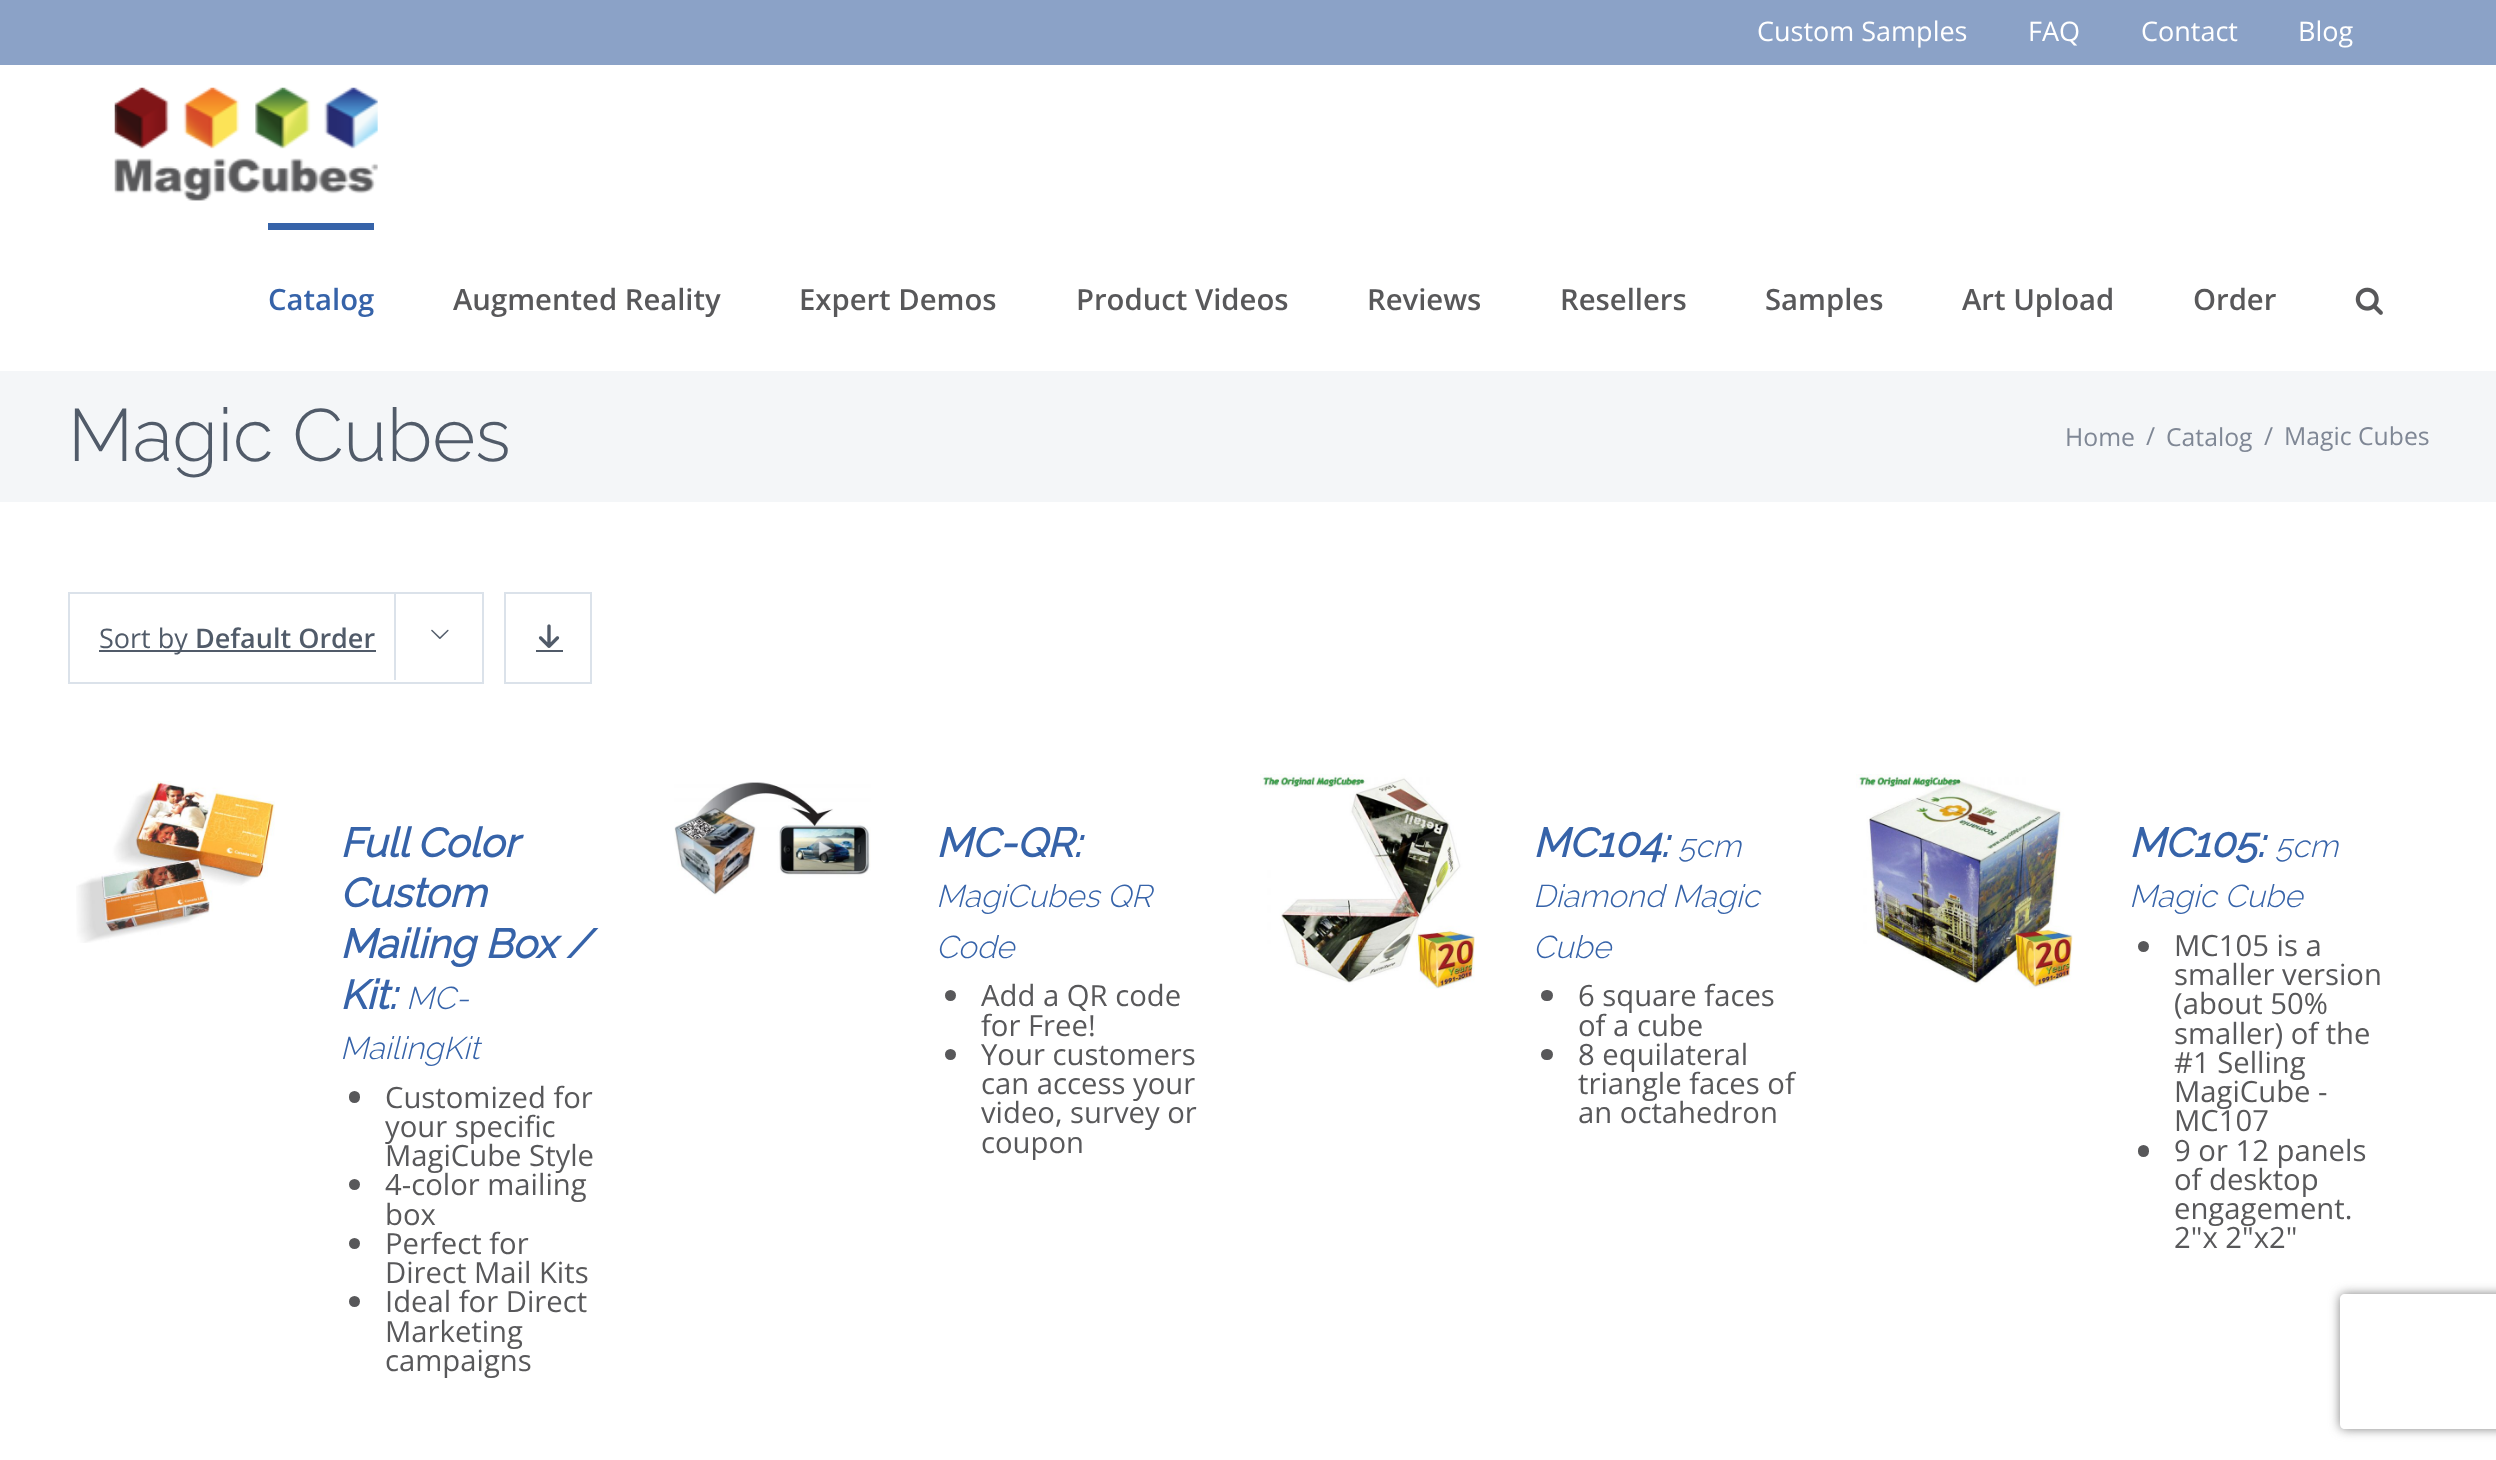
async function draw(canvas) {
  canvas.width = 2496;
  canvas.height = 1460;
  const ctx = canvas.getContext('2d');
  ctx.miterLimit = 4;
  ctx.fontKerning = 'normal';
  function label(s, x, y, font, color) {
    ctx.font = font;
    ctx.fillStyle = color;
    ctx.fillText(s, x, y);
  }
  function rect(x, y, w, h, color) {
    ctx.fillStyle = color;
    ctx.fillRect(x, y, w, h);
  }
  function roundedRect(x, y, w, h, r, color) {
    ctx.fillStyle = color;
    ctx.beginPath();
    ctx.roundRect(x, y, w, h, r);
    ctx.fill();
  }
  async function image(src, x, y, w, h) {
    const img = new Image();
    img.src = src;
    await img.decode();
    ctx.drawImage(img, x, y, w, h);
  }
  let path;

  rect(0, 0, 2496, 1460, '#fff');
  rect(0, 0, 2496, 65, '#8ba2c7');
  label('Custom Samples', 1757, 41, '27px Open Sans', '#fff');
  label('FAQ', 2028, 41, '27px Open Sans', '#fff');
  label('Contact', 2141, 41, '27px Open Sans', '#fff');
  label('Blog', 2298, 41, '27px Open Sans', '#fff');
  await image('assets/img1.png', 114, 87, 264, 114);
  rect(268, 223, 106, 7, '#3663a9');
  label('Catalog', 268, 310, '600 29.25px Open Sans', '#3663a9');
  label('Augmented Reality', 453, 310, '600 29.25px Open Sans', '#58585a');
  label('Expert Demos', 799, 310, '600 29.25px Open Sans', '#58585a');
  label('Product Videos', 1076, 310, '600 29.25px Open Sans', '#58585a');
  label('Reviews', 1367, 310, '600 29.25px Open Sans', '#58585a');
  label('Resellers', 1560, 310, '600 29.25px Open Sans', '#58585a');
  label('Samples', 1765, 310, '600 29.25px Open Sans', '#58585a');
  label('Art Upload', 1962, 310, '600 29.25px Open Sans', '#58585a');
  label('Order', 2193, 310, '600 29.25px Open Sans', '#58585a');
  await image('assets/img2.png', 2355, 287, 28, 28);
  rect(0, 371, 2496, 131, '#f4f6f8');
  label('Magic Cubes', 68, 461, '300 74px Raleway', '#515b69');
  label('Home', 2065, 446, '24.75px Open Sans', '#7f8795');
  label('/', 2146, 445, '24.75px Open Sans', '#7f8795');
  label('Catalog', 2166, 446, '24.75px Open Sans', '#7f8795');
  label('/', 2264, 445, '24.75px Open Sans', '#7f8795');
  label('Magic Cubes', 2284, 445, '24.75px Open Sans', '#7f8795');
  ctx.strokeStyle = '#dbe2ea';
  ctx.lineWidth = 2;
  ctx.strokeRect(69, 593, 414, 90);
  rect(99, 650, 277, 2, '#515b69');
  label('Sort by', 99, 648, '27px Open Sans', '#515b69');
  label('Default Order', 195, 648, '600 27px Open Sans', '#515b69');
  rect(394, 592, 2, 88, '#dbe2ea');
  await image('assets/img3.png', 431, 629, 18, 10);
  ctx.strokeRect(505, 593, 86, 90);
  await image('assets/img4.png', 538, 624, 22, 24);
  rect(536, 650, 27, 2, '#515b69');
  await image('assets/img5.png', 76, 781, 199, 162);
  ctx.wordSpacing = '-1px';
  label('Full Color', 340, 857, 'italic bold 40.5px Raleway', '#3663a9');
  ctx.wordSpacing = '0px';
  label('Custom', 340, 907, 'italic bold 40.5px Raleway', '#3663a9');
  label('Mailing Box /', 340, 958, 'italic bold 40.5px Raleway', '#3663a9');
  label('Kit:', 340, 1009, 'italic bold 40.5px Raleway', '#3663a9');
  label('MC-', 406, 1009, 'italic 300 31.5px Raleway', '#3663a9');
  label('MailingKit', 340, 1059, 'italic 300 31.5px Raleway', '#3663a9');
  roundedRect(349, 1091, 11, 12, 5.5, '#58585a');
  label('Customized for', 385, 1108, '29.25px Open Sans', '#58585a');
  label('your specific', 385, 1137, '29.25px Open Sans', '#58585a');
  label('MagiCube Style', 385, 1166, '29.25px Open Sans', '#58585a');
  ctx.beginPath();
  ctx.arc(354.5, 1184.5, 5.5, 0, 2 * Math.PI);
  ctx.fill();
  label('4-color mailing', 385, 1195, '29.25px Open Sans', '#58585a');
  label('box', 385, 1225, '29.25px Open Sans', '#58585a');
  ctx.beginPath();
  ctx.arc(354.5, 1243.5, 5.5, 0, 2 * Math.PI);
  ctx.fill();
  label('Perfect for', 385, 1254, '29.25px Open Sans', '#58585a');
  label('Direct Mail Kits', 385, 1283, '29.25px Open Sans', '#58585a');
  ctx.beginPath();
  ctx.arc(354.5, 1301.5, 5.5, 0, 2 * Math.PI);
  ctx.fill();
  label('Ideal for Direct', 385, 1312, '29.25px Open Sans', '#58585a');
  label('Marketing', 385, 1342, '29.25px Open Sans', '#58585a');
  label('campaigns', 385, 1371, '29.25px Open Sans', '#58585a');
  await image('assets/img6.png', 674, 782, 197, 114);
  label('MC-QR:', 936, 857, 'italic bold 40.5px Raleway', '#3663a9');
  label('MagiCubes QR', 936, 907, 'italic 300 31.5px Raleway', '#3663a9');
  label('Code', 936, 958, 'italic 300 31.5px Raleway', '#3663a9');
  ctx.fillStyle = '#58585a';
  ctx.beginPath();
  ctx.arc(950.5, 995.5, 5.5, 0, 2 * Math.PI);
  ctx.fill();
  label('Add a QR code', 981, 1006, '29.25px Open Sans', '#58585a');
  label('for Free!', 981, 1036, '29.25px Open Sans', '#58585a');
  ctx.beginPath();
  ctx.arc(950.5, 1054.5, 5.5, 0, 2 * Math.PI);
  ctx.fill();
  label('Your customers', 981, 1065, '29.25px Open Sans', '#58585a');
  label('can access your', 981, 1094, '29.25px Open Sans', '#58585a');
  label('video, survey or', 981, 1123, '29.25px Open Sans', '#58585a');
  label('coupon', 981, 1153, '29.25px Open Sans', '#58585a');
  await image('assets/img7.png', 1260, 774, 215, 215);
  label('MC104:', 1533, 857, 'italic bold 40.5px Raleway', '#3663a9');
  label('5cm', 1678, 857, 'italic 300 31.5px Raleway', '#3663a9');
  label('Diamond Magic', 1533, 907, 'italic 300 31.5px Raleway', '#3663a9');
  label('Cube', 1533, 958, 'italic 300 31.5px Raleway', '#3663a9');
  roundedRect(1541, 990, 12, 11, 5.5, '#58585a');
  label('6 square faces', 1578, 1006, '29.25px Open Sans', '#58585a');
  label('of a cube', 1578, 1036, '29.25px Open Sans', '#58585a');
  roundedRect(1541, 1049, 12, 11, 5.5, '#58585a');
  label('8 equilateral', 1578, 1065, '29.25px Open Sans', '#58585a');
  label('triangle faces of', 1578, 1094, '29.25px Open Sans', '#58585a');
  label('an octahedron', 1578, 1123, '29.25px Open Sans', '#58585a');
  await image('assets/img8.png', 1856, 774, 217, 215);
  label('MC105:', 2129, 857, 'italic bold 40.5px Raleway', '#3663a9');
  label('5cm', 2275, 857, 'italic 300 31.5px Raleway', '#3663a9');
  label('Magic Cube', 2129, 907, 'italic 300 31.5px Raleway', '#3663a9');
  ctx.fillStyle = '#58585a';
  ctx.beginPath();
  ctx.arc(2143.5, 946.5, 5.5, 0, 2 * Math.PI);
  ctx.fill();
  label('MC105 is a', 2174, 956, '29.25px Open Sans', '#58585a');
  label('smaller version', 2174, 985, '29.25px Open Sans', '#58585a');
  label('(about 50%', 2174, 1014, '29.25px Open Sans', '#58585a');
  label('smaller) of the', 2174, 1044, '29.25px Open Sans', '#58585a');
  label('#1 Selling', 2174, 1073, '29.25px Open Sans', '#58585a');
  label('MagiCube -', 2174, 1102, '29.25px Open Sans', '#58585a');
  label('MC107', 2174, 1131, '29.25px Open Sans', '#58585a');
  roundedRect(2138, 1145, 11, 12, 5.5, '#58585a');
  label('9 or 12 panels', 2174, 1161, '29.25px Open Sans', '#58585a');
  label('of desktop', 2174, 1190, '29.25px Open Sans', '#58585a');
  label('engagement.', 2174, 1219, '29.25px Open Sans', '#58585a');
  label('2"x 2"x2"', 2174, 1248, '29.25px Open Sans', '#58585a');
  ctx.save();
  path = new Path2D('M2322 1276H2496V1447H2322ZM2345 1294H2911C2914 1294 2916 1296 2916 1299V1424C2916 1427 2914 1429 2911 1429H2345C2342 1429 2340 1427 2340 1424V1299C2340 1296 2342 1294 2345 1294Z');
  ctx.clip(path, 'evenodd');
  ctx.fillStyle = '#808080';
  ctx.filter = 'blur(5.5px)';
  ctx.beginPath();
  ctx.roundRect(2340, 1294, 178, 135, 5);
  ctx.fill();
  ctx.filter = 'none';
  ctx.restore();
}

draw(document.querySelector('canvas'));
